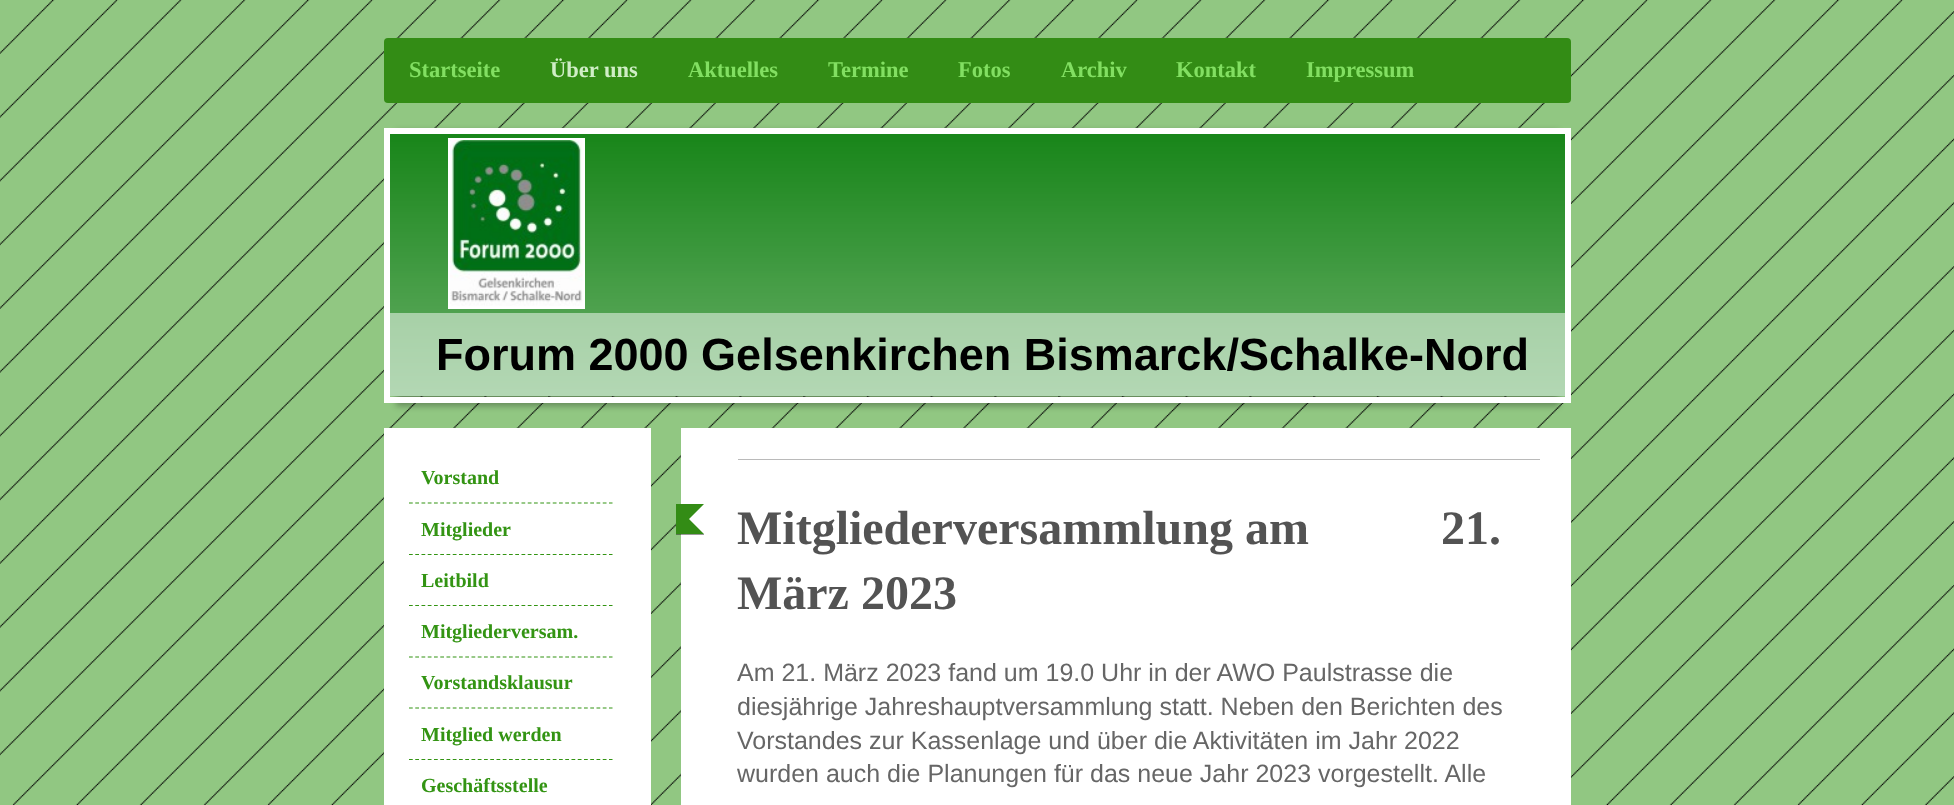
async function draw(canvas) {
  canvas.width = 1954;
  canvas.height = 805;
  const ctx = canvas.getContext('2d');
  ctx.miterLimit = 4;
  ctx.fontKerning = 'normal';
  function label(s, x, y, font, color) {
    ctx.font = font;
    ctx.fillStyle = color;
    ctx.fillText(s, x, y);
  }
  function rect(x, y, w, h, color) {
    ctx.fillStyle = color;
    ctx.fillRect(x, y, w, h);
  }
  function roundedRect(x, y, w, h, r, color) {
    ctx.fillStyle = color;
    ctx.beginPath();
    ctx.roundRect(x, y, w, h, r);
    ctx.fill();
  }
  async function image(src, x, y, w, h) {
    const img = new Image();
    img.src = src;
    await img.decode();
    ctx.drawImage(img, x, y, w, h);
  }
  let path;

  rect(0, 0, 1954, 805, '#91c782');
  await image('assets/img1.png', 0, 0, 1954, 805);
  roundedRect(384, 38, 1187, 65, 4, '#338c15');
  label('Startseite', 409, 77, 'bold 22.5px Liberation Serif', '#82df62');
  label('Über uns', 550, 77, 'bold 22.5px Liberation Serif', '#d0eec6');
  label('Aktuelles', 688, 77, 'bold 22.5px Liberation Serif', '#82df62');
  label('Termine', 828, 77, 'bold 22.5px Liberation Serif', '#82df62');
  label('Fotos', 958, 77, 'bold 22.5px Liberation Serif', '#82df62');
  label('Archiv', 1061, 77, 'bold 22.5px Liberation Serif', '#82df62');
  label('Kontakt', 1176, 77, 'bold 22.5px Liberation Serif', '#82df62');
  label('Impressum', 1306, 77, 'bold 22.5px Liberation Serif', '#82df62');
  ctx.fillStyle = '#0000004d';
  ctx.filter = 'blur(3px)';
  ctx.beginPath();
  ctx.rect(396, 131, 1163, 275);
  ctx.fill();
  ctx.filter = 'none';
  ctx.strokeStyle = '#fff';
  ctx.lineWidth = 6;
  ctx.strokeRect(387, 131, 1181, 269);
  rect(390, 134, 1175, 262, '#037a04');
  await image('assets/img2.png', 390, 134, 1175, 263);
  ctx.lineWidth = 3;
  ctx.strokeRect(449.5, 139.5, 134, 168);
  await image('assets/img3.png', 450, 140, 133, 166);
  rect(390, 313, 1175, 83, '#ffffff80');
  label('Forum 2000 Gelsenkirchen Bismarck/Schalke-Nord', 436, 370, 'bold 45px Liberation Sans', '#000');
  rect(384, 428, 267, 377, '#fff');
  path = new Path2D('M409 503H612.5');
  ctx.strokeStyle = '#339413';
  ctx.lineWidth = 1.2;
  ctx.setLineDash([3.75, 2.5]);
  ctx.stroke(path);
  label('Vorstand', 421, 484, 'bold 20px Liberation Serif', '#339413');
  path = new Path2D('M409 554.5H612.5');
  ctx.stroke(path);
  label('Mitglieder', 421, 536, 'bold 20px Liberation Serif', '#339413');
  path = new Path2D('M409 605.5H612.5');
  ctx.stroke(path);
  label('Leitbild', 421, 587, 'bold 20px Liberation Serif', '#339413');
  path = new Path2D('M409 657H612.5');
  ctx.stroke(path);
  label('Mitgliederversam.', 421, 638, 'bold 20px Liberation Serif', '#339413');
  path = new Path2D('M409 708H612.5');
  ctx.stroke(path);
  label('Vorstandsklausur', 421, 689, 'bold 20px Liberation Serif', '#339413');
  path = new Path2D('M409 759.5H612.5');
  ctx.stroke(path);
  label('Mitglied werden', 421, 741, 'bold 20px Liberation Serif', '#339413');
  label('Geschäftsstelle', 421, 792, 'bold 20px Liberation Serif', '#339413');
  rect(681, 428, 890, 377, '#fff');
  rect(738, 459, 802, 1, '#bababa');
  ctx.fillStyle = '#00000066';
  path = new Path2D('M676 505V535H704V505V534H676Z');
  ctx.fill(path);
  ctx.fillStyle = '#338c15';
  path = new Path2D('M676 504H704L689 519ZM704 534H676L689 519Z');
  ctx.fill(path);
  rect(676, 504, 13, 30, '#338c15');
  label('Mitgliederversammlung am           21.', 737, 544, 'bold 48px Liberation Serif', '#535353');
  label('März 2023', 737, 609, 'bold 48px Liberation Serif', '#535353');
  label('Am 21. März 2023 fand um 19.0 Uhr in der AWO Paulstrasse die', 737, 681, '25px Liberation Sans', '#666');
  label('diesjährige Jahreshauptversammlung statt. Neben den Berichten des', 737, 715, '25px Liberation Sans', '#666');
  label('Vorstandes zur Kassenlage und über die Aktivitäten im Jahr 2022', 737, 749, '25px Liberation Sans', '#666');
  label('wurden auch die Planungen für das neue Jahr 2023 vorgestellt. Alle', 737, 782, '25px Liberation Sans', '#666');
}

draw(document.querySelector('canvas'));
